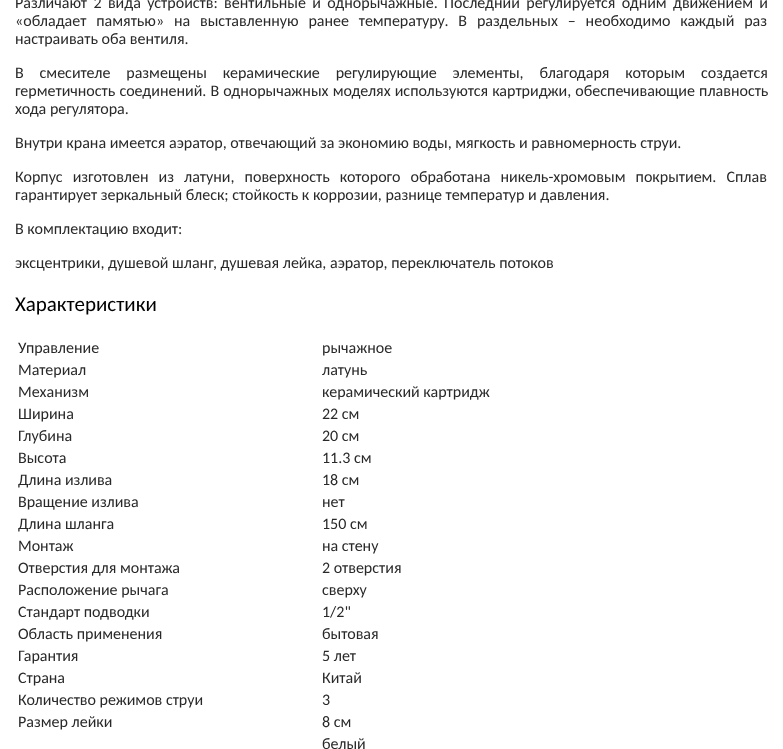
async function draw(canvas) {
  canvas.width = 783;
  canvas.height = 749;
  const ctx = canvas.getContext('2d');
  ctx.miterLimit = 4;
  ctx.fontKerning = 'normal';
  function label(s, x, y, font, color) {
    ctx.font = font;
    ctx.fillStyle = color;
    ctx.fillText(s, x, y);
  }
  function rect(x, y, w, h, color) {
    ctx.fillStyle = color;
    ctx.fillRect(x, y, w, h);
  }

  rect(0, 0, 783, 749, '#fff');
  ctx.wordSpacing = '2.75px';
  label('Различают 2 вида устройств: вентильные и однорычажные. Последний регулируется одним движением и', 15, 8, '16px Carlito', '#292929');
  ctx.wordSpacing = '6.25px';
  label('«обладает памятью» на выставленную ранее температуру. В раздельных – необходимо каждый раз', 15, 26, '16px Carlito', '#292929');
  ctx.wordSpacing = '0px';
  label('настраивать оба вентиля.', 15, 44, '16px Carlito', '#292929');
  ctx.wordSpacing = '12.25px';
  label('В смесителе размещены керамические регулирующие элементы, благодаря которым создается', 15, 78, '16px Carlito', '#292929');
  ctx.wordSpacing = '0.5px';
  label('герметичность соединений. В однорычажных моделях используются картриджи, обеспечивающие плавность', 15, 96, '16px Carlito', '#292929');
  ctx.wordSpacing = '0px';
  label('хода регулятора.', 15, 114, '16px Carlito', '#292929');
  label('Внутри крана имеется аэратор, отвечающий за экономию воды, мягкость и равномерность струи.', 15, 148, '16px Carlito', '#292929');
  ctx.wordSpacing = '6.5px';
  label('Корпус изготовлен из латуни, поверхность которого обработана никель-хромовым покрытием. Сплав', 15, 182, '16px Carlito', '#292929');
  ctx.wordSpacing = '0px';
  label('гарантирует зеркальный блеск; стойкость к коррозии, разнице температур и давления.', 15, 200, '16px Carlito', '#292929');
  label('В комплектацию входит:', 15, 234, '16px Carlito', '#292929');
  label('эксцентрики, душевой шланг, душевая лейка, аэратор, переключатель потоков', 15, 268, '16px Carlito', '#292929');
  label('Характеристики', 15, 311, '21px Carlito', '#000');
  label('Управление', 18, 353, '16px Carlito', '#292929');
  label('рычажное', 322, 353, '16px Carlito', '#292929');
  label('Материал', 18, 375, '16px Carlito', '#292929');
  label('латунь', 322, 375, '16px Carlito', '#292929');
  label('Механизм', 18, 397, '16px Carlito', '#292929');
  label('керамический картридж', 322, 397, '16px Carlito', '#292929');
  label('Ширина', 18, 419, '16px Carlito', '#292929');
  label('22 см', 322, 419, '16px Carlito', '#292929');
  label('Глубина', 18, 441, '16px Carlito', '#292929');
  label('20 см', 322, 441, '16px Carlito', '#292929');
  label('Высота', 18, 463, '16px Carlito', '#292929');
  label('11.3 см', 322, 463, '16px Carlito', '#292929');
  label('Длина излива', 18, 485, '16px Carlito', '#292929');
  label('18 см', 322, 485, '16px Carlito', '#292929');
  label('Вращение излива', 18, 507, '16px Carlito', '#292929');
  label('нет', 322, 507, '16px Carlito', '#292929');
  label('Длина шланга', 18, 529, '16px Carlito', '#292929');
  label('150 см', 322, 529, '16px Carlito', '#292929');
  label('Монтаж', 18, 551, '16px Carlito', '#292929');
  label('на стену', 322, 551, '16px Carlito', '#292929');
  label('Отверстия для монтажа', 18, 573, '16px Carlito', '#292929');
  label('2 отверстия', 322, 573, '16px Carlito', '#292929');
  label('Расположение рычага', 18, 595, '16px Carlito', '#292929');
  label('сверху', 322, 595, '16px Carlito', '#292929');
  label('Стандарт подводки', 18, 617, '16px Carlito', '#292929');
  label('1/2"', 322, 617, '16px Carlito', '#292929');
  label('Область применения', 18, 639, '16px Carlito', '#292929');
  label('бытовая', 322, 639, '16px Carlito', '#292929');
  label('Гарантия', 18, 661, '16px Carlito', '#292929');
  label('5 лет', 322, 661, '16px Carlito', '#292929');
  label('Страна', 18, 683, '16px Carlito', '#292929');
  label('Китай', 322, 683, '16px Carlito', '#292929');
  label('Количество режимов струи', 18, 705, '16px Carlito', '#292929');
  label('3', 322, 705, '16px Carlito', '#292929');
  label('Размер лейки', 18, 727, '16px Carlito', '#292929');
  label('8 см', 322, 727, '16px Carlito', '#292929');
  label('белый', 322, 749, '16px Carlito', '#292929');
}

draw(document.querySelector('canvas'));
